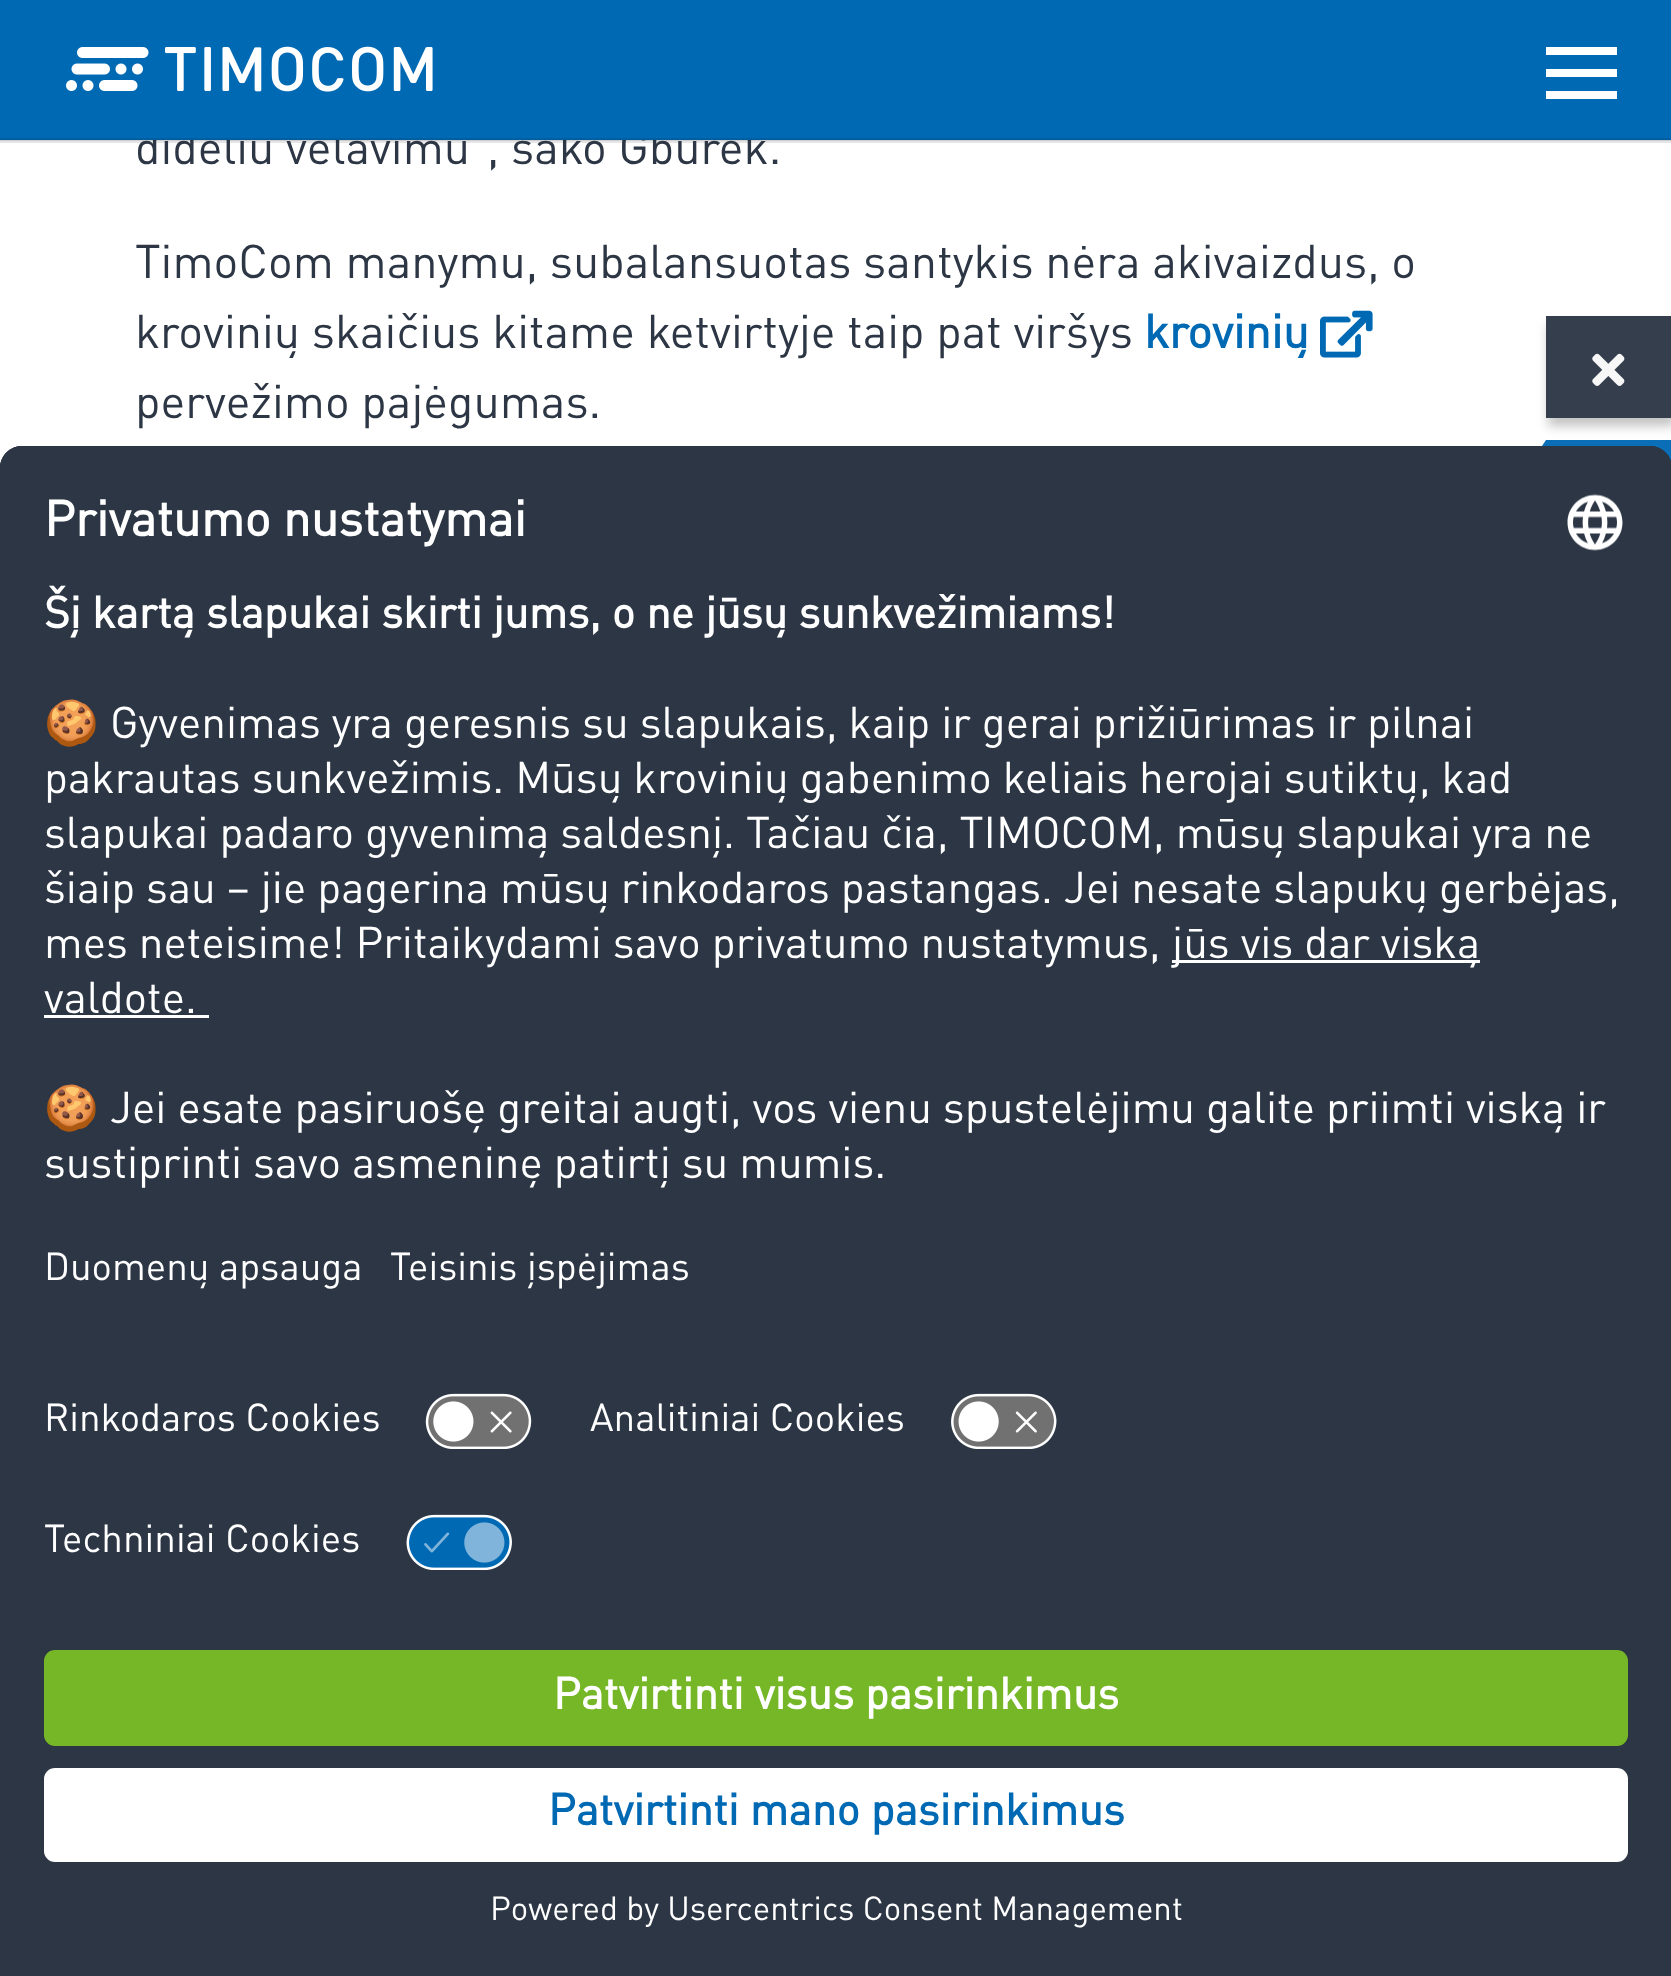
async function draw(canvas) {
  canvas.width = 1671;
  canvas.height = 1976;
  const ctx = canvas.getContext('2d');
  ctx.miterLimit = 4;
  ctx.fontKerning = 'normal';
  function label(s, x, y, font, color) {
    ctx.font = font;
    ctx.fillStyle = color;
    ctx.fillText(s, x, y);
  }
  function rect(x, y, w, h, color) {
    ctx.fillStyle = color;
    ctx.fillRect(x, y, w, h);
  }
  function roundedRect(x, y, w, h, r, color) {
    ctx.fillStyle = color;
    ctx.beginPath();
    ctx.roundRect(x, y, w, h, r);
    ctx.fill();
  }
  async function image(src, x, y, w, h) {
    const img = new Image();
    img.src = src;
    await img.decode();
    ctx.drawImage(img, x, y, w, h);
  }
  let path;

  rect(0, 0, 1671, 1976, '#fff');
  rect(0, 140, 1671, 3, '#0000001a');
  label('dideliu vėlavimu“, sako Gburek.', 135, 164, '46.75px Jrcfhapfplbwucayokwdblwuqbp', '#2c3644');
  rect(0, 0, 1671, 140, '#0069b4');
  rect(0, 138, 1671, 3, '#0000001a');
  await image('assets/img1.png', 66, 46, 367, 46);
  rect(1546, 47, 71, 8, '#fff');
  rect(1546, 69, 71, 8, '#fff');
  rect(1546, 91, 71, 8, '#fff');
  label('TimoCom manymu, subalansuotas santykis nėra akivaizdus, o', 135, 278, '46.75px Jrcfhapfplbwucayokwdblwuqbp', '#2c3644');
  label('krovinių skaičius kitame ketvirtyje taip pat viršys', 135, 348, '46.75px Jrcfhapfplbwucayokwdblwuqbp', '#2c3644');
  label('krovinių', 1144, 348, 'bold 46.75px Jrcfhapfplbwucayokwdblwuqbp', '#0069b4');
  await image('assets/img2.png', 1320, 310, 53, 48);
  label('pervežimo pajėgumas.', 135, 418, '46.75px Jrcfhapfplbwucayokwdblwuqbp', '#2c3644');
  rect(1546, 440, 125, 22, '#0a6fb7');
  path = new Path2D('M1546 440V566L1504 503Z');
  ctx.fill(path);
  ctx.fillStyle = '#0a0a0a40';
  ctx.filter = 'blur(5.5px)';
  ctx.beginPath();
  ctx.rect(1548, 325, 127, 101);
  ctx.fill();
  ctx.filter = 'none';
  rect(1546, 316, 125, 102, '#353e4c');
  await image('assets/img3.png', 1592, 353, 33, 33);
  ctx.fillStyle = '#2c3644';
  path = new Path2D('M22 446H1650C1662 446 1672 456 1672 468V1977H0V468C0 456 10 446 22 446Z');
  ctx.fill(path);
  path = new Path2D('M22 446H1650C1662 446 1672 456 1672 468V1617H0V468C0 456 10 446 22 446Z');
  ctx.fill(path);
  path = new Path2D('M22 446H1650C1662 446 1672 456 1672 468V1375H0V468C0 456 10 446 22 446Z');
  ctx.fill(path);
  label('Privatumo nustatymai', 44, 536, 'bold 49.5px Jrcfhapfplbwucayokwdblwuqbp', '#fff');
  await image('assets/img4.png', 1567, 494, 56, 57);
  label('Šį kartą slapukai skirti jums, o ne jūsų sunkvežimiams!', 44, 628, 'bold 44px Jrcfhapfplbwucayokwdblwuqbp', '#fff');
  label('🍪', 44, 738, '44px Noto Color Emoji', '#fff');
  label('Gyvenimas yra geresnis su slapukais, kaip ir gerai prižiūrimas ir pilnai', 110, 738, '44px Jrcfhapfplbwucayokwdblwuqbp', '#fff');
  label('pakrautas sunkvežimis. Mūsų krovinių gabenimo keliais herojai sutiktų, kad', 44, 793, '44px Jrcfhapfplbwucayokwdblwuqbp', '#fff');
  label('slapukai padaro gyvenimą saldesnį. Tačiau čia, TIMOCOM, mūsų slapukai yra ne', 44, 848, '44px Jrcfhapfplbwucayokwdblwuqbp', '#fff');
  label('šiaip sau – jie pagerina mūsų rinkodaros pastangas. Jei nesate slapukų gerbėjas,', 44, 903, '44px Jrcfhapfplbwucayokwdblwuqbp', '#fff');
  label('mes neteisime! Pritaikydami savo privatumo nustatymus,', 44, 958, '44px Jrcfhapfplbwucayokwdblwuqbp', '#fff');
  rect(1172, 960, 308, 3, '#fff');
  label('jūs vis dar viską', 1172, 958, '44px Jrcfhapfplbwucayokwdblwuqbp', '#fff');
  label('valdote.', 44, 1013, '44px Jrcfhapfplbwucayokwdblwuqbp', '#fff');
  rect(44, 1015, 165, 3, '#fff');
  label('🍪', 44, 1123, '44px Noto Color Emoji', '#fff');
  label('Jei esate pasiruošę greitai augti, vos vienu spustelėjimu galite priimti viską ir', 110, 1123, '44px Jrcfhapfplbwucayokwdblwuqbp', '#fff');
  label('sustiprinti savo asmeninę patirtį su mumis.', 44, 1178, '44px Jrcfhapfplbwucayokwdblwuqbp', '#fff');
  label('Duomenų apsauga', 44, 1280, '38.5px Jrcfhapfplbwucayokwdblwuqbp', '#fff');
  label('Teisinis įspėjimas', 390, 1280, '38.5px Jrcfhapfplbwucayokwdblwuqbp', '#fff');
  label('Rinkodaros Cookies', 44, 1431, '38.5px Jrcfhapfplbwucayokwdblwuqbp', '#fff');
  await image('assets/img5.png', 425, 1393, 107, 56);
  label('Analitiniai Cookies', 590, 1431, '38.5px Jrcfhapfplbwucayokwdblwuqbp', '#fff');
  await image('assets/img6.png', 951, 1393, 106, 56);
  label('Techniniai Cookies', 44, 1552, '38.5px Jrcfhapfplbwucayokwdblwuqbp', '#fff');
  await image('assets/img7.png', 406, 1514, 106, 56);
  roundedRect(44, 1650, 1584, 96, 11, '#75b727');
  label('Patvirtinti visus pasirinkimus', 553, 1709, 'bold 44px Jrcfhapfplbwucayokwdblwuqbp', '#fff');
  roundedRect(44, 1768, 1584, 94, 11, '#fff');
  label('Patvirtinti mano pasirinkimus', 548, 1825, 'bold 44px Jrcfhapfplbwucayokwdblwuqbp', '#0069b4');
  label('Powered by Usercentrics Consent Management', 490, 1920, '33px Jrcfhapfplbwucayokwdblwuqbp', '#fff');
}

draw(document.querySelector('canvas'));
